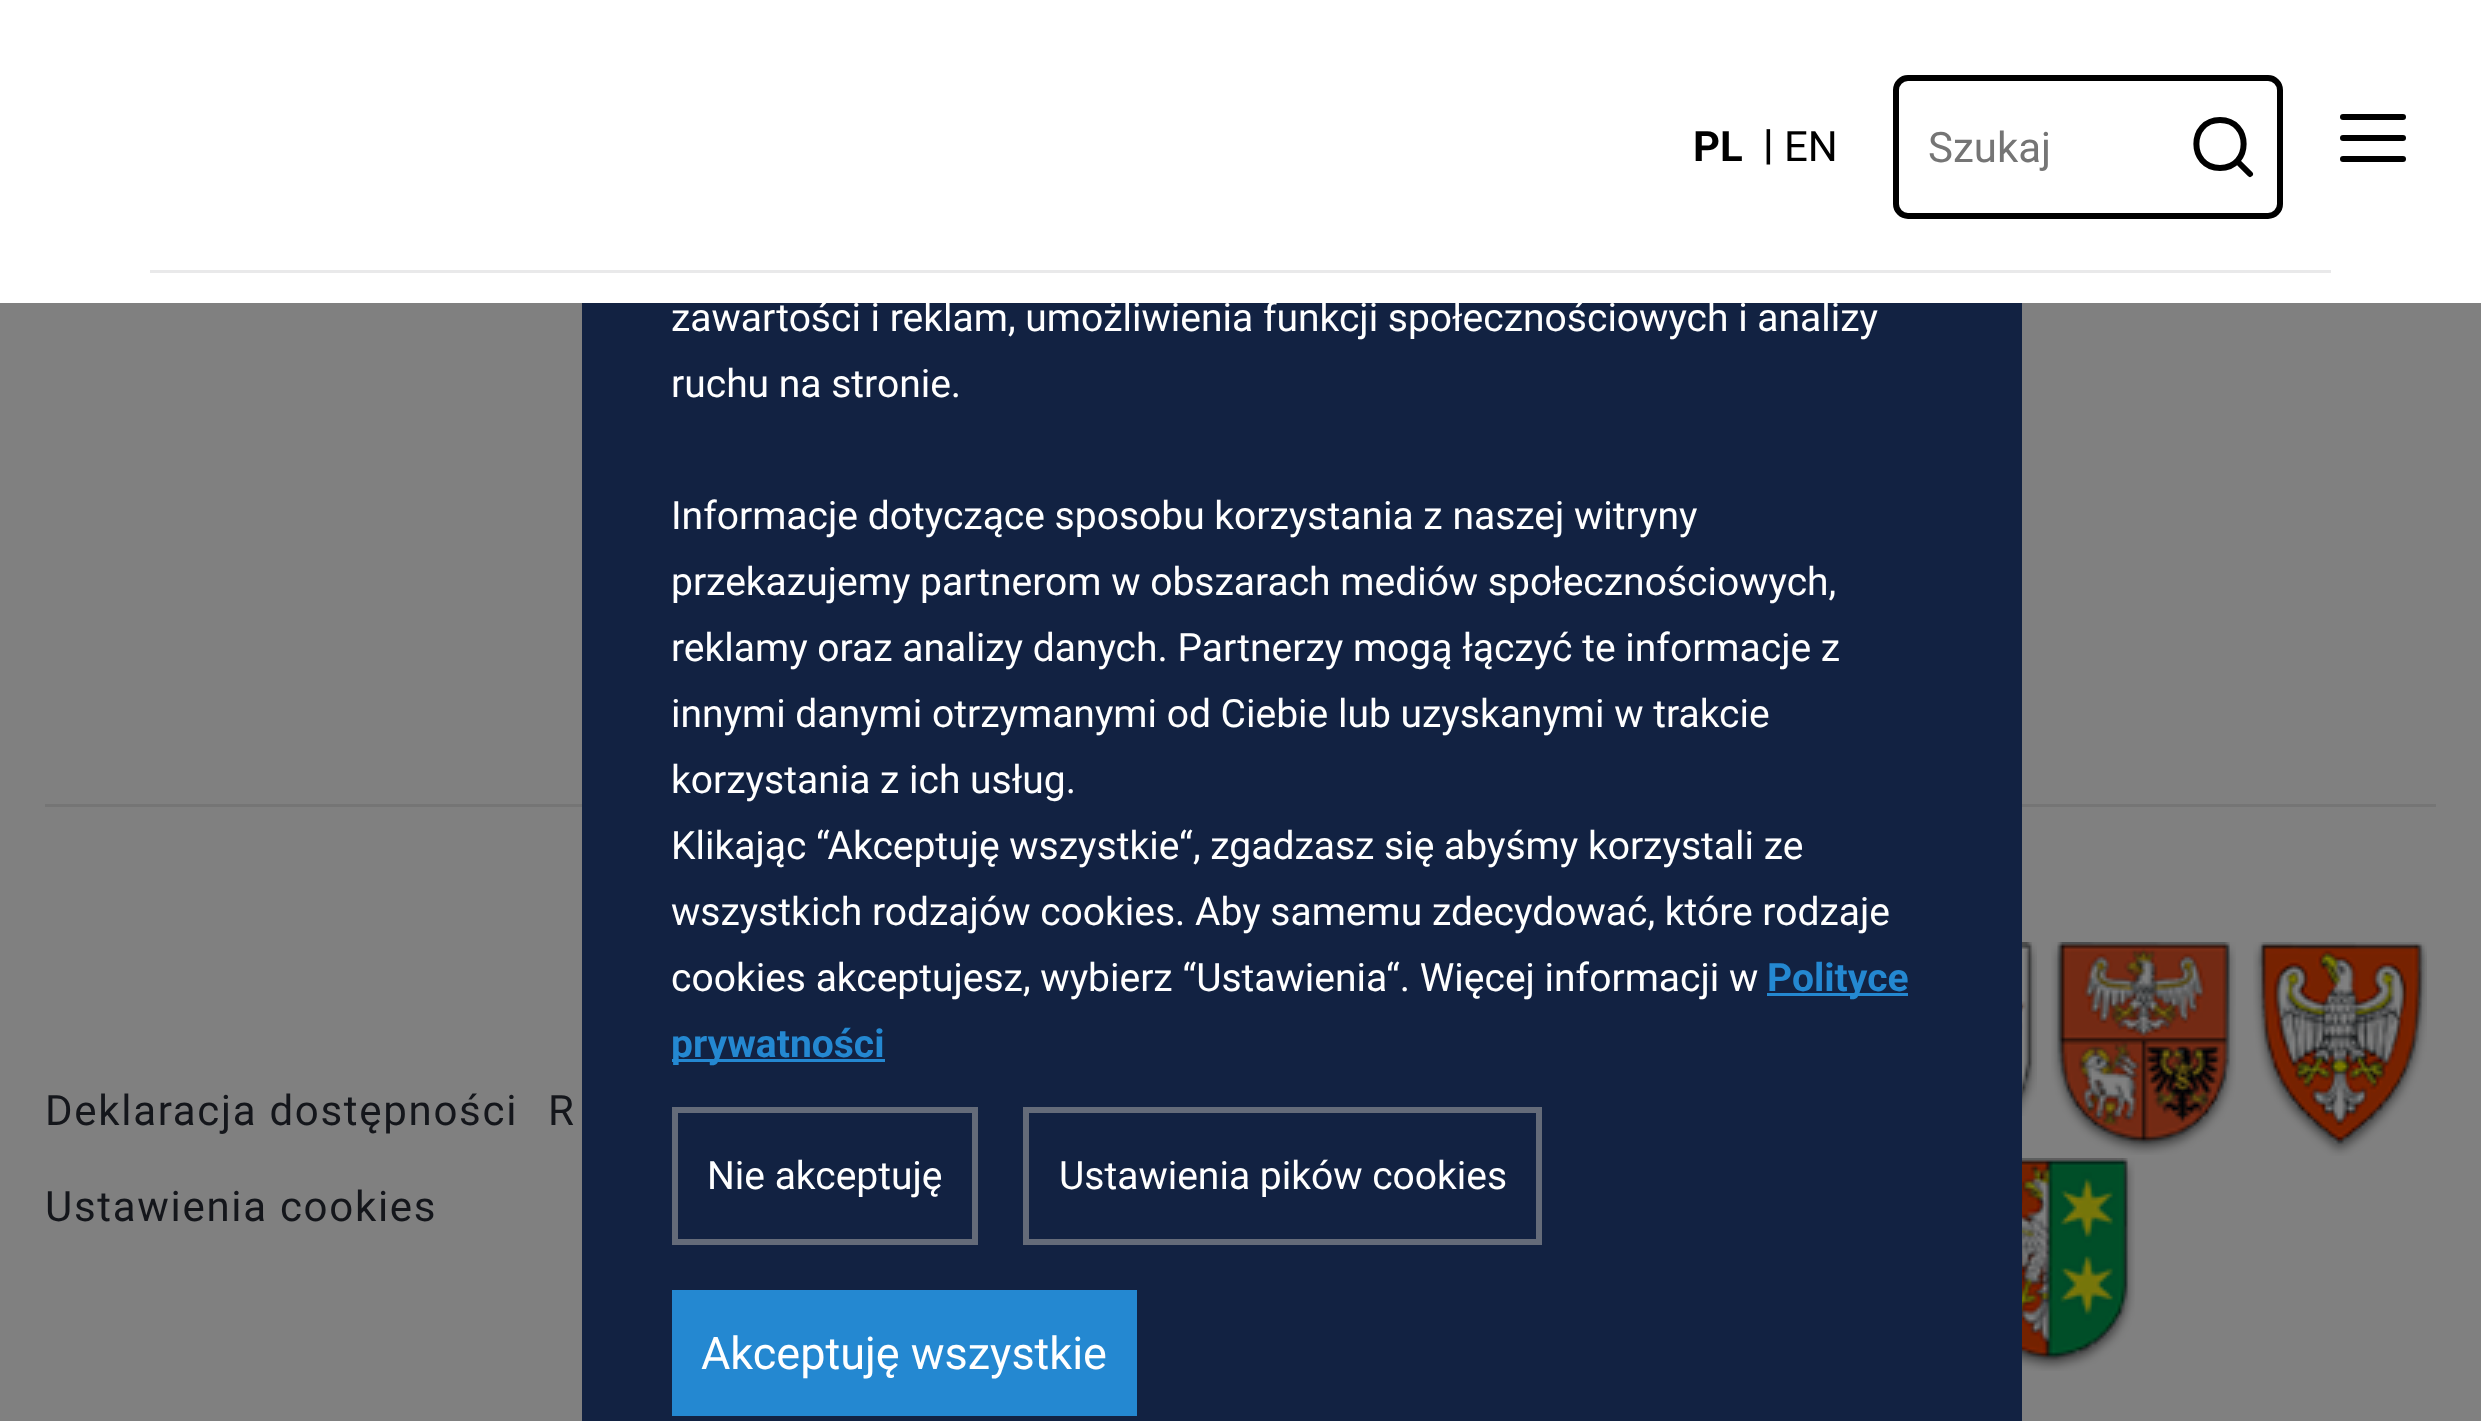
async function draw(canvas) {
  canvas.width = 2481;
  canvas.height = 1421;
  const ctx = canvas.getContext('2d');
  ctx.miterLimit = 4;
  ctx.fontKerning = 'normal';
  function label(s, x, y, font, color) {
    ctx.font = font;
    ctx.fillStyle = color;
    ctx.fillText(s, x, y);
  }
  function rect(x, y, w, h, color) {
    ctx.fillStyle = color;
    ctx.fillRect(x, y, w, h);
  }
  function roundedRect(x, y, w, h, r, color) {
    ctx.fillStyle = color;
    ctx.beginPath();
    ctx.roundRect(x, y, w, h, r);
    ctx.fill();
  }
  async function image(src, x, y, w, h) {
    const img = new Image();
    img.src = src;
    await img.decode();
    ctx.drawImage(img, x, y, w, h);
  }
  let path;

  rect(0, 0, 2481, 1421, '#808080');
  rect(0, 0, 2481, 303, '#fff');
  label('PL', 1693, 161, 'bold 42px Roboto', '#000');
  label('|', 1763, 159, 'bold 42px Roboto', '#000');
  label('EN', 1784, 161, '42px Roboto', '#000');
  ctx.beginPath();
  ctx.roundRect(1896, 78, 384, 138, 12);
  ctx.strokeStyle = '#000';
  ctx.lineWidth = 6;
  ctx.stroke();
  label('Szukaj', 1928, 162, '42px Roboto', '#757575');
  path = new Path2D('M2220 168C2251.5 168 2251.5 120 2220 120C2188.5 120 2188.5 168 2220 168ZM2250 174L2237 161');
  ctx.lineCap = 'round';
  ctx.lineJoin = 'round';
  ctx.stroke(path);
  roundedRect(2340, 135, 66, 6, 3, '#000');
  roundedRect(2340, 114, 66, 6, 3, '#000');
  roundedRect(2340, 156, 66, 6, 3, '#000');
  rect(150, 270, 2181, 3, '#e9e9ea');
  rect(45, 804, 2391, 3, '#757575');
  ctx.letterSpacing = '1.7px';
  label('Deklaracja dostępności', 45, 1125, '42px Roboto', '#14161b');
  label('R', 548, 1125, '42px Roboto', '#14161b');
  label('Ustawienia cookies', 45, 1221, '42px Roboto', '#14161b');
  await image('assets/img1.png', 2022, 942, 15, 174);
  await image('assets/img2.png', 2051, 942, 185, 213);
  await image('assets/img3.png', 2253, 942, 174, 214);
  await image('assets/img4.png', 2022, 1158, 113, 213);
  rect(582, 303, 1440, 1118, '#122242');
  ctx.letterSpacing = '0px';
  label('zawartości i reklam, umożliwienia funkcji społecznościowych i analizy', 671, 331, '39px Roboto', '#fff');
  label('ruchu na stronie.', 671, 397, '39px Roboto', '#fff');
  label('Informacje dotyczące sposobu korzystania z naszej witryny', 671, 529, '39px Roboto', '#fff');
  label('przekazujemy partnerom w obszarach mediów społecznościowych,', 671, 595, '39px Roboto', '#fff');
  label('reklamy oraz analizy danych. Partnerzy mogą łączyć te informacje z', 671, 661, '39px Roboto', '#fff');
  label('innymi danymi otrzymanymi od Ciebie lub uzyskanymi w trakcie', 671, 727, '39px Roboto', '#fff');
  label('korzystania z ich usług.', 671, 793, '39px Roboto', '#fff');
  label('Klikając “Akceptuję wszystkie“, zgadzasz się abyśmy korzystali ze', 671, 859, '39px Roboto', '#fff');
  label('wszystkich rodzajów cookies. Aby samemu zdecydować, które rodzaje', 671, 925, '39px Roboto', '#fff');
  label('cookies akceptujesz, wybierz “Ustawienia“. Więcej informacji w', 671, 991, '39px Roboto', '#fff');
  rect(1767, 993, 141, 3, '#2488d1');
  label('Polityce', 1767, 991, 'bold 39px Roboto', '#2488d1');
  rect(672, 1059, 213, 3, '#2488d1');
  label('prywatności', 671, 1057, 'bold 39px Roboto', '#2488d1');
  ctx.strokeStyle = '#646b79';
  ctx.lineJoin = 'miter';
  ctx.strokeRect(675, 1110, 300, 132);
  label('Nie akceptuję', 707, 1189, '39px Roboto', '#fff');
  ctx.strokeRect(1026, 1110, 513, 132);
  label('Ustawienia pików cookies', 1059, 1189, '39px Roboto', '#fff');
  rect(672, 1290, 465, 126, '#2488d1');
  label('Akceptuję wszystkie', 701, 1369, '45px Roboto', '#fff');
}

draw(document.querySelector('canvas'));
